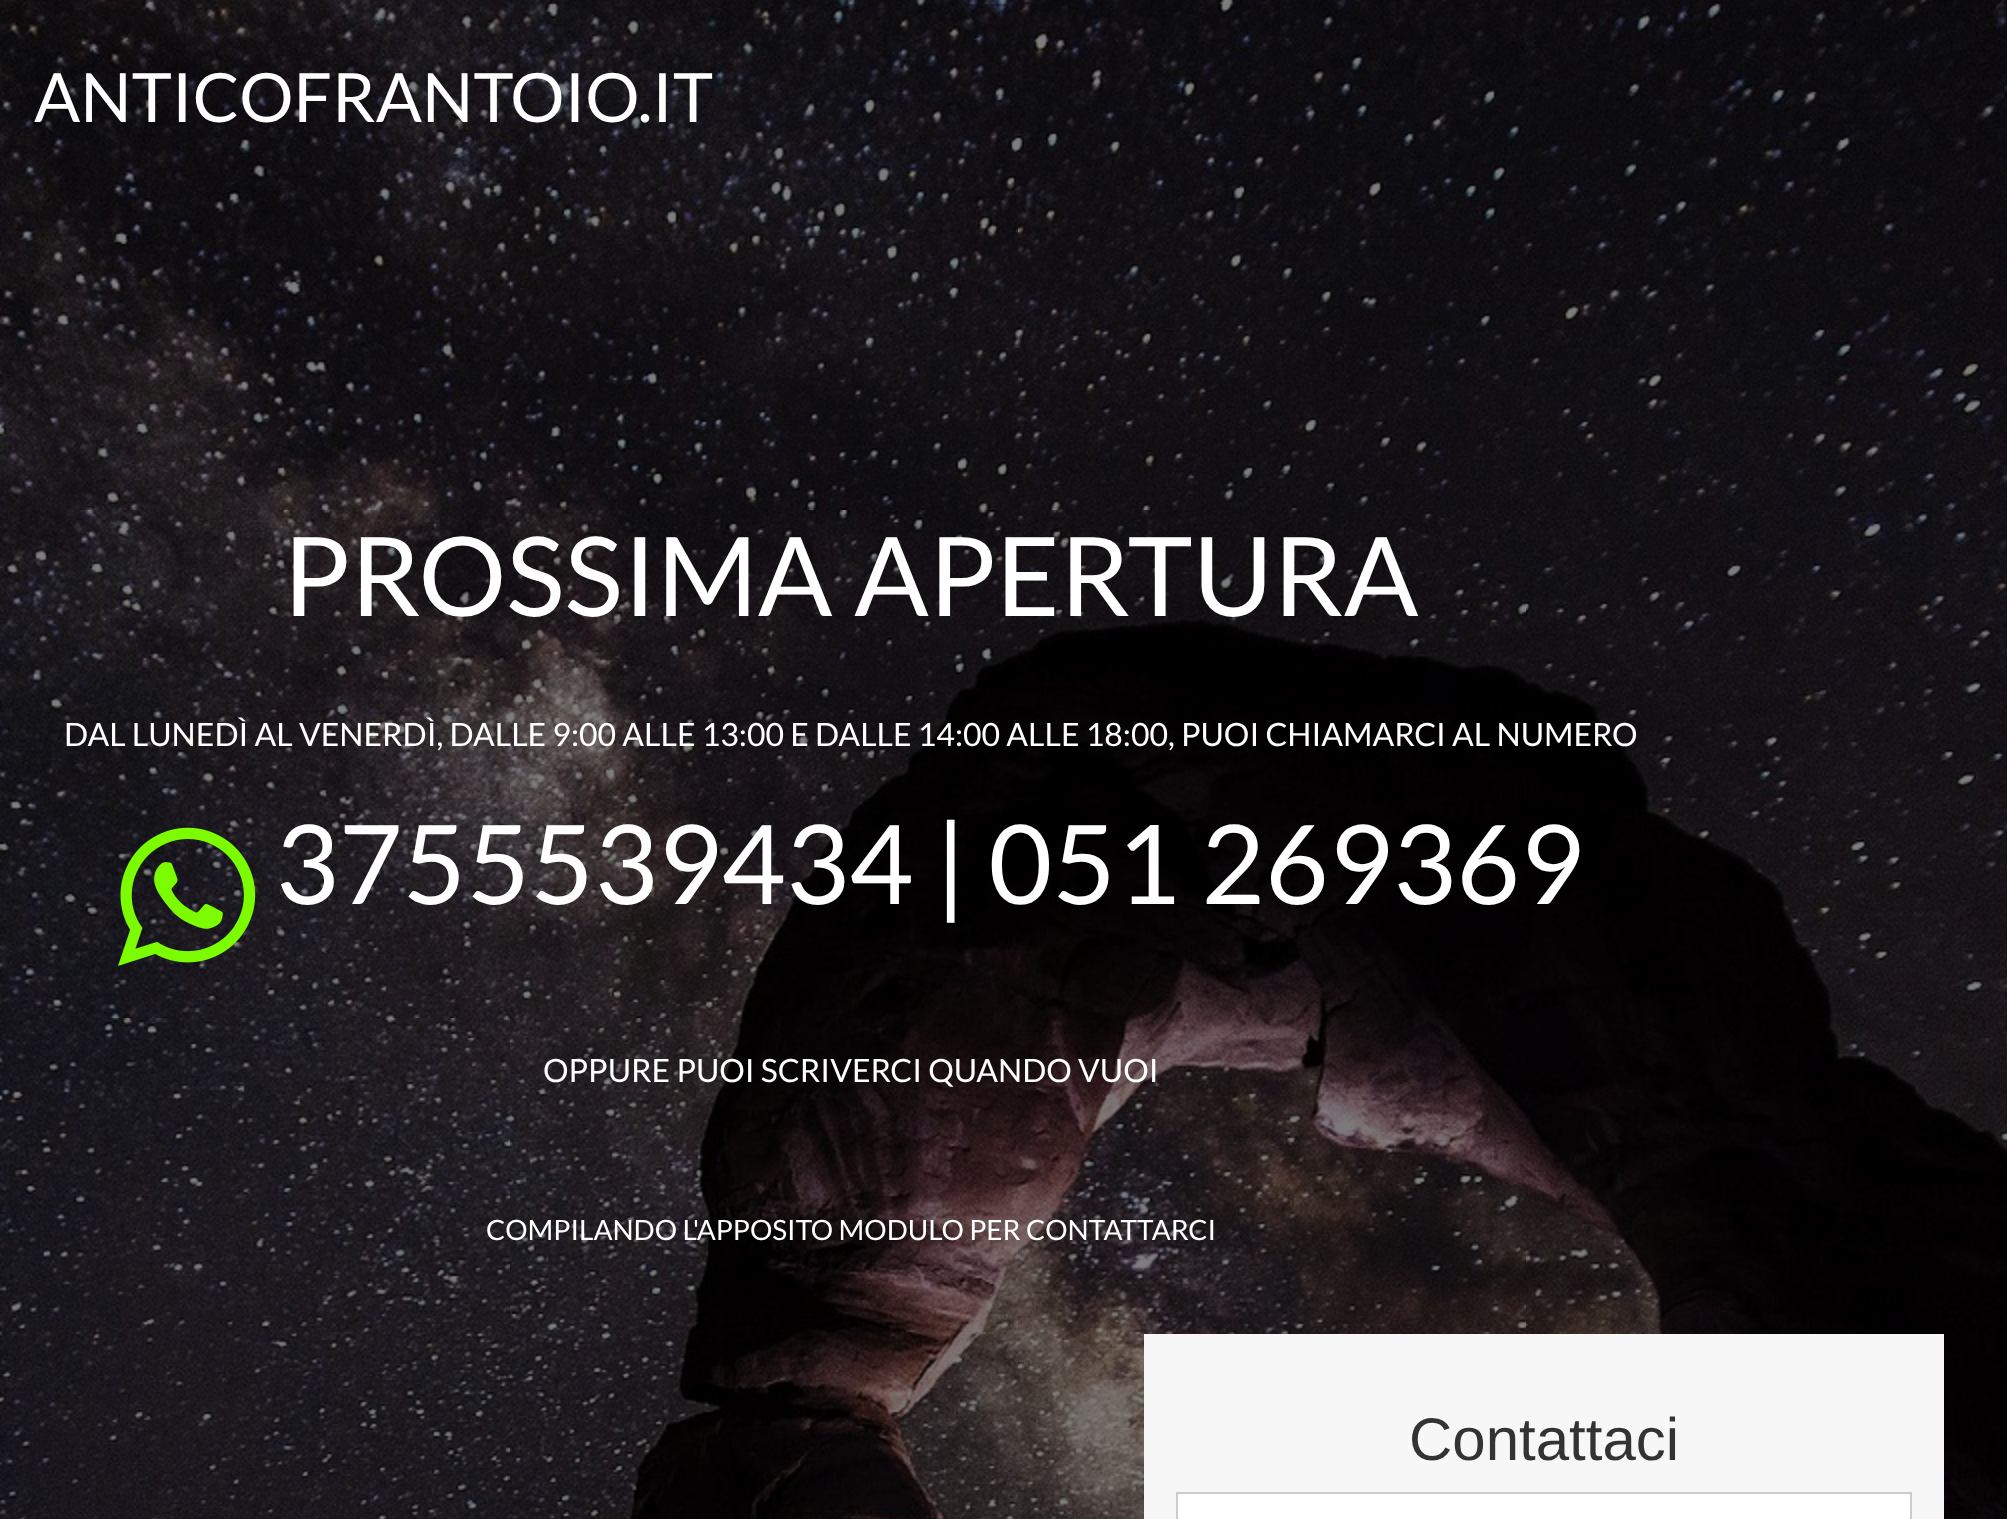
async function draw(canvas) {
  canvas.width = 2007;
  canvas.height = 1519;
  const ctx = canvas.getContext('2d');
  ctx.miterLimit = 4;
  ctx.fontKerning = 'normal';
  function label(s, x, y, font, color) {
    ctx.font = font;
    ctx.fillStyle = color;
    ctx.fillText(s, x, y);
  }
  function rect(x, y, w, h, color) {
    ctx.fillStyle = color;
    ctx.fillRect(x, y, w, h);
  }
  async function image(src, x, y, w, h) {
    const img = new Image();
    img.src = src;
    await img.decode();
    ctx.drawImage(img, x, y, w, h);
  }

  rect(0, 0, 2007, 1519, '#fff');
  await image('assets/img1.png', 0, 0, 2007, 1519);
  label('ANTICOFRANTOIO.IT', 34, 122, '68px Lato', '#fff');
  label('PROSSIMA APERTURA', 283, 616, '110px Lato', '#fff');
  label('DAL LUNEDÌ AL VENERDÌ, DALLE 9:00 ALLE 13:00 E DALLE 14:00 ALLE 18:00, PUOI CHIAMARCI AL NUMERO', 64, 746, '32px Lato', '#fff');
  await image('assets/img2.png', 118, 827, 138, 139);
  label('3755539434 | 051 269369', 275, 904, '110px Lato', '#fff');
  label('OPPURE PUOI SCRIVERCI QUANDO VUOI', 543, 1082, '32px Lato', '#fff');
  label('COMPILANDO L\'APPOSITO MODULO PER CONTATTARCI', 486, 1240, '28px Lato', '#fff');
  rect(1144, 1334, 800, 185, '#f7f7f7');
  label('Contattaci', 1409, 1460, '60px Liberation Sans', '#333');
  ctx.fillStyle = '#fff';
  ctx.beginPath();
  ctx.rect(1177, 1493, 734, 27);
  ctx.fill();
  ctx.strokeStyle = '#ccc';
  ctx.lineWidth = 2;
  ctx.stroke();
}

draw(document.querySelector('canvas'));
